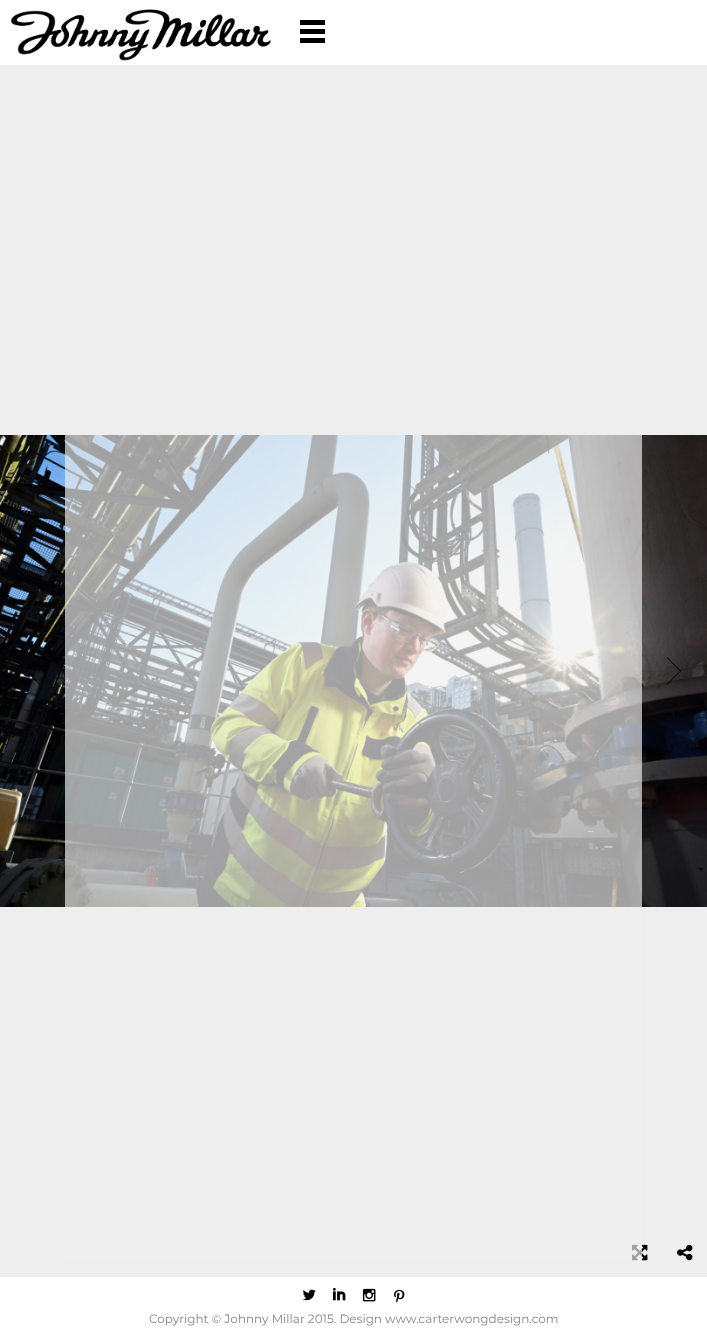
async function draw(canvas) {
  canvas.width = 707;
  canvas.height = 1342;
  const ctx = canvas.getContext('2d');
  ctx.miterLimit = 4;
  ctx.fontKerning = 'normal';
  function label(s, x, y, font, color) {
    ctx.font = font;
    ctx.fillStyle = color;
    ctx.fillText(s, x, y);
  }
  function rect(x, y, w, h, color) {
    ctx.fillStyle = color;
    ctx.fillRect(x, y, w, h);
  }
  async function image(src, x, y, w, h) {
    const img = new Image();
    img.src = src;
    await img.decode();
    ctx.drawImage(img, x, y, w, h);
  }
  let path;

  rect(0, 0, 707, 1342, '#fff');
  await image('assets/img1.png', 10, 9, 261, 52);
  await image('assets/img2.png', 300, 20, 25, 23);
  rect(0, 65, 707, 1212, '#eee');
  await image('assets/img3.png', 0, 435, 707, 472);
  ctx.fillStyle = '#000';
  path = new Path2D('M26.5 670.5L40.5 684.5L40 685L26 671Z');
  ctx.fill(path);
  path = new Path2D('M40 657L40.5 657.5L26.5 671.5L26 671Z');
  ctx.fill(path);
  path = new Path2D('M667 657L681 671L680.5 671.5L666.5 657.5Z');
  ctx.fill(path);
  path = new Path2D('M680.5 670.5L681 671L667 685L666.5 684.5Z');
  ctx.fill(path);
  await image('assets/img4.png', 632, 1244, 16, 17);
  await image('assets/img5.png', 677, 1244, 16, 17);
  rect(65, 435, 577, 826, '#eeeeeeab');
  await image('assets/img6.png', 303, 1289, 13, 12);
  await image('assets/img7.png', 333, 1287, 13, 14);
  await image('assets/img8.png', 362, 1288, 14, 14);
  await image('assets/img9.png', 394, 1289, 11, 14);
  label('Copyright © Johnny Millar 2015. Design www.carterwongdesign.com', 149, 1323, '100 12px Montserrat', '#868686');
}

draw(document.querySelector('canvas'));
